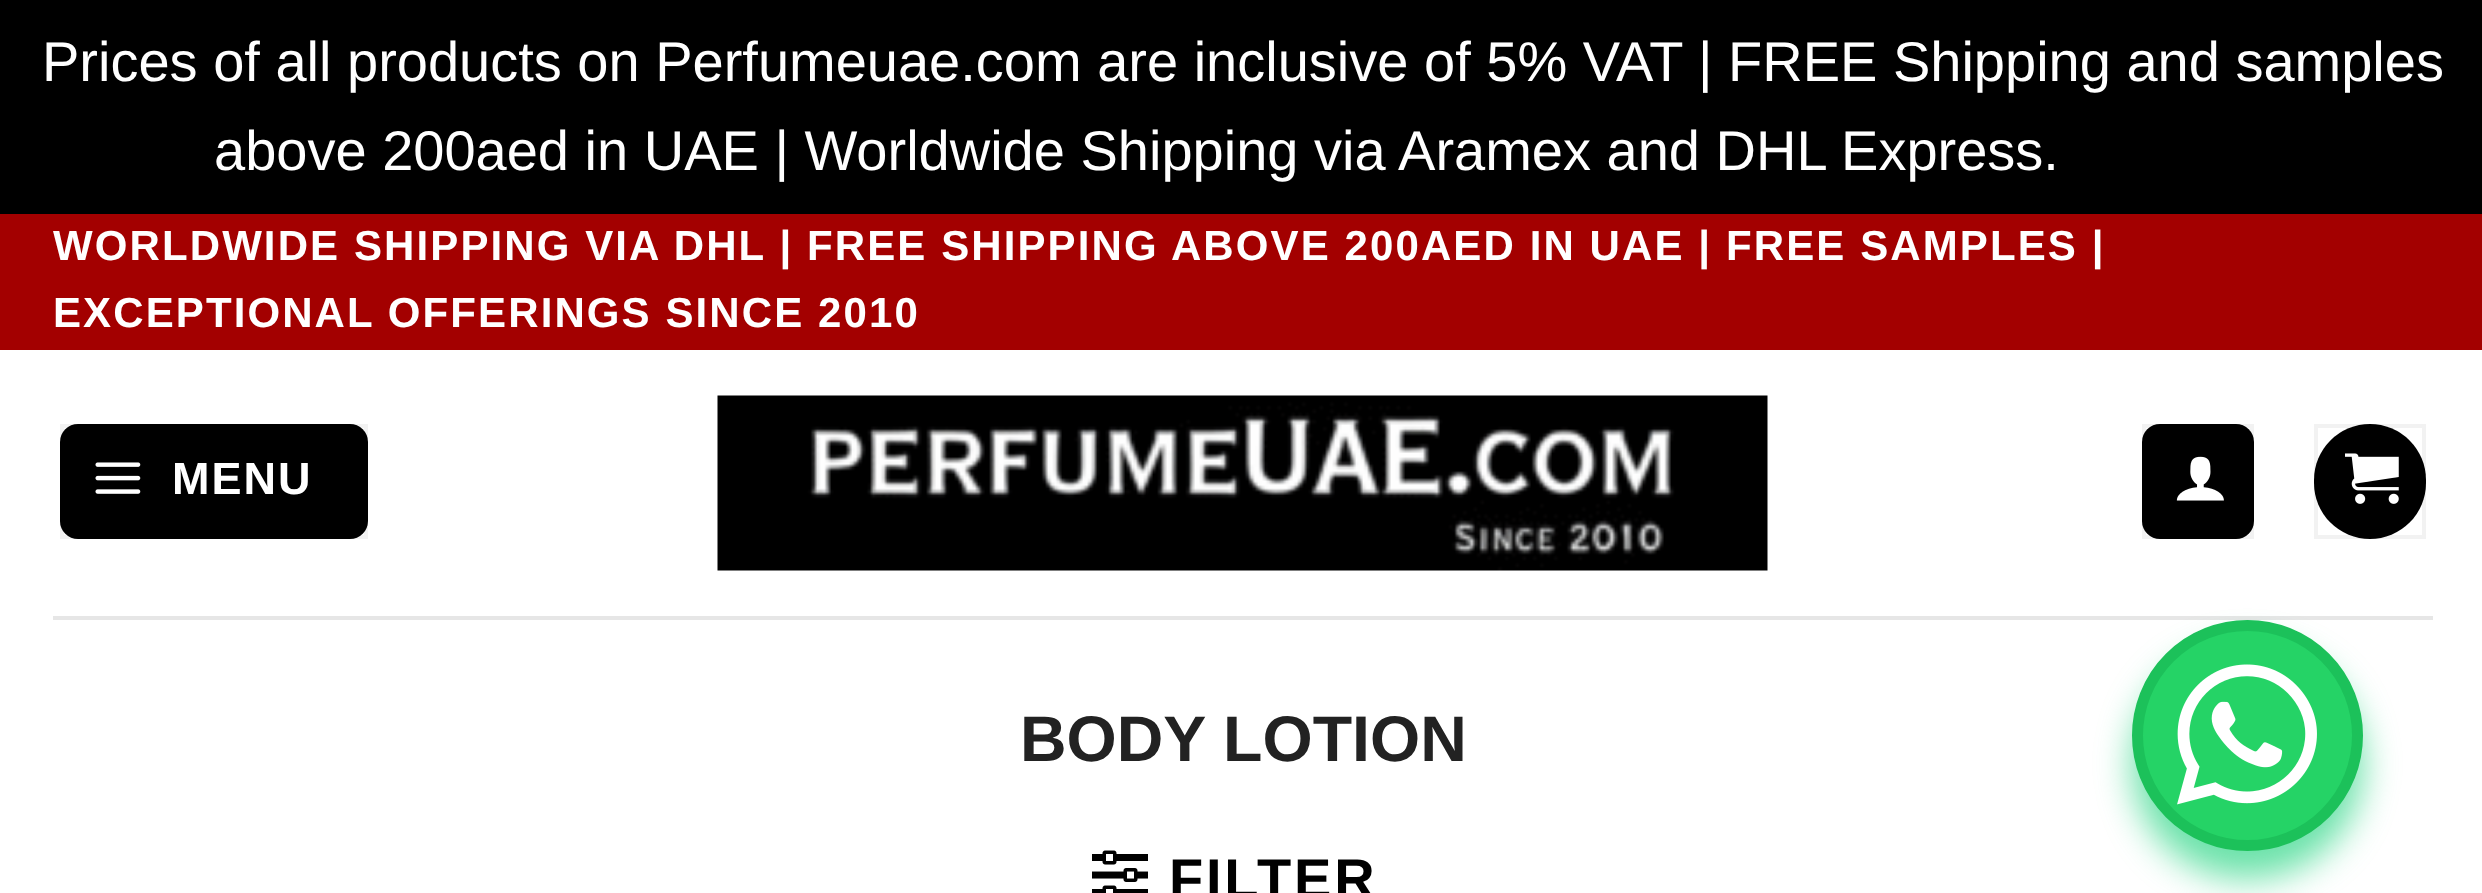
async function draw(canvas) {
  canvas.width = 2482;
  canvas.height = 893;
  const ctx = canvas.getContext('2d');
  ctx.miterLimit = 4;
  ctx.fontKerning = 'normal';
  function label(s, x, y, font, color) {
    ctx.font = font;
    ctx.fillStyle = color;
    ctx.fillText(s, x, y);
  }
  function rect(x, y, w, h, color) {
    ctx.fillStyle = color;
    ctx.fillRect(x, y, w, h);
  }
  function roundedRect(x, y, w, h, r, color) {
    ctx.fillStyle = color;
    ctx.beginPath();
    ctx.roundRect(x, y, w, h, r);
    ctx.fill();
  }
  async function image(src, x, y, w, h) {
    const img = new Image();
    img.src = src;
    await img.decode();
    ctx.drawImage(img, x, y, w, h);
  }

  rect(0, 0, 2482, 893, '#fff');
  rect(0, 0, 2482, 214, '#000');
  label('Prices of all products on Perfumeuae.com are inclusive of 5% VAT | FREE Shipping and samples', 42, 81, '56px Liberation Sans', '#fff');
  label('above 200aed in UAE | Worldwide Shipping via Aramex and DHL Express.', 214, 170, '56px Liberation Sans', '#fff');
  rect(0, 214, 2482, 136, '#a30000');
  ctx.letterSpacing = '2.1px';
  label('WORLDWIDE SHIPPING VIA DHL | FREE SHIPPING ABOVE 200AED IN UAE | FREE SAMPLES |', 53, 260, 'bold 42px Liberation Sans', '#fff');
  label('EXCEPTIONAL OFFERINGS SINCE 2010', 53, 327, 'bold 42px Liberation Sans', '#fff');
  roundedRect(60, 424, 308, 115, 18, '#000');
  ctx.strokeStyle = '#0000000d';
  ctx.lineWidth = 4;
  ctx.strokeRect(62, 426, 304, 111);
  await image('assets/img1.png', 95, 462, 46, 32);
  ctx.letterSpacing = '2px';
  label('MENU', 172, 494, 'bold 45px Liberation Sans', '#fff');
  await image('assets/img2.png', 717, 395, 1051, 176);
  roundedRect(2142, 424, 112, 115, 18, '#000');
  ctx.strokeRect(2144, 426, 108, 111);
  await image('assets/img3.png', 2176, 456, 48, 45);
  roundedRect(2314, 424, 112, 115, 56, '#000');
  ctx.strokeRect(2316, 426, 108, 111);
  await image('assets/img4.png', 2345, 453, 54, 51);
  rect(53, 616, 2380, 4, '#e6e6e6');
  ctx.letterSpacing = '0px';
  label('BODY LOTION', 1020, 761, 'bold 64.5px Liberation Sans', '#222');
  await image('assets/img5.png', 1092, 850, 56, 43);
  ctx.letterSpacing = '2.75px';
  label('FILTER', 1169, 898, 'bold 56px Liberation Sans', '#000');
  ctx.fillStyle = '#07ce7099';
  ctx.filter = 'blur(17.5px)';
  ctx.beginPath();
  ctx.roundRect(2132, 648, 231, 231, 115.5);
  ctx.fill();
  ctx.filter = 'none';
  ctx.fillStyle = '#25d366';
  ctx.beginPath();
  ctx.arc(2247.5, 735.5, 110, 0, 2 * Math.PI);
  ctx.fill();
  ctx.strokeStyle = '#1cc15a';
  ctx.lineWidth = 11;
  ctx.stroke();
  await image('assets/img6.png', 2177, 664, 140, 141);
}

draw(document.querySelector('canvas'));
